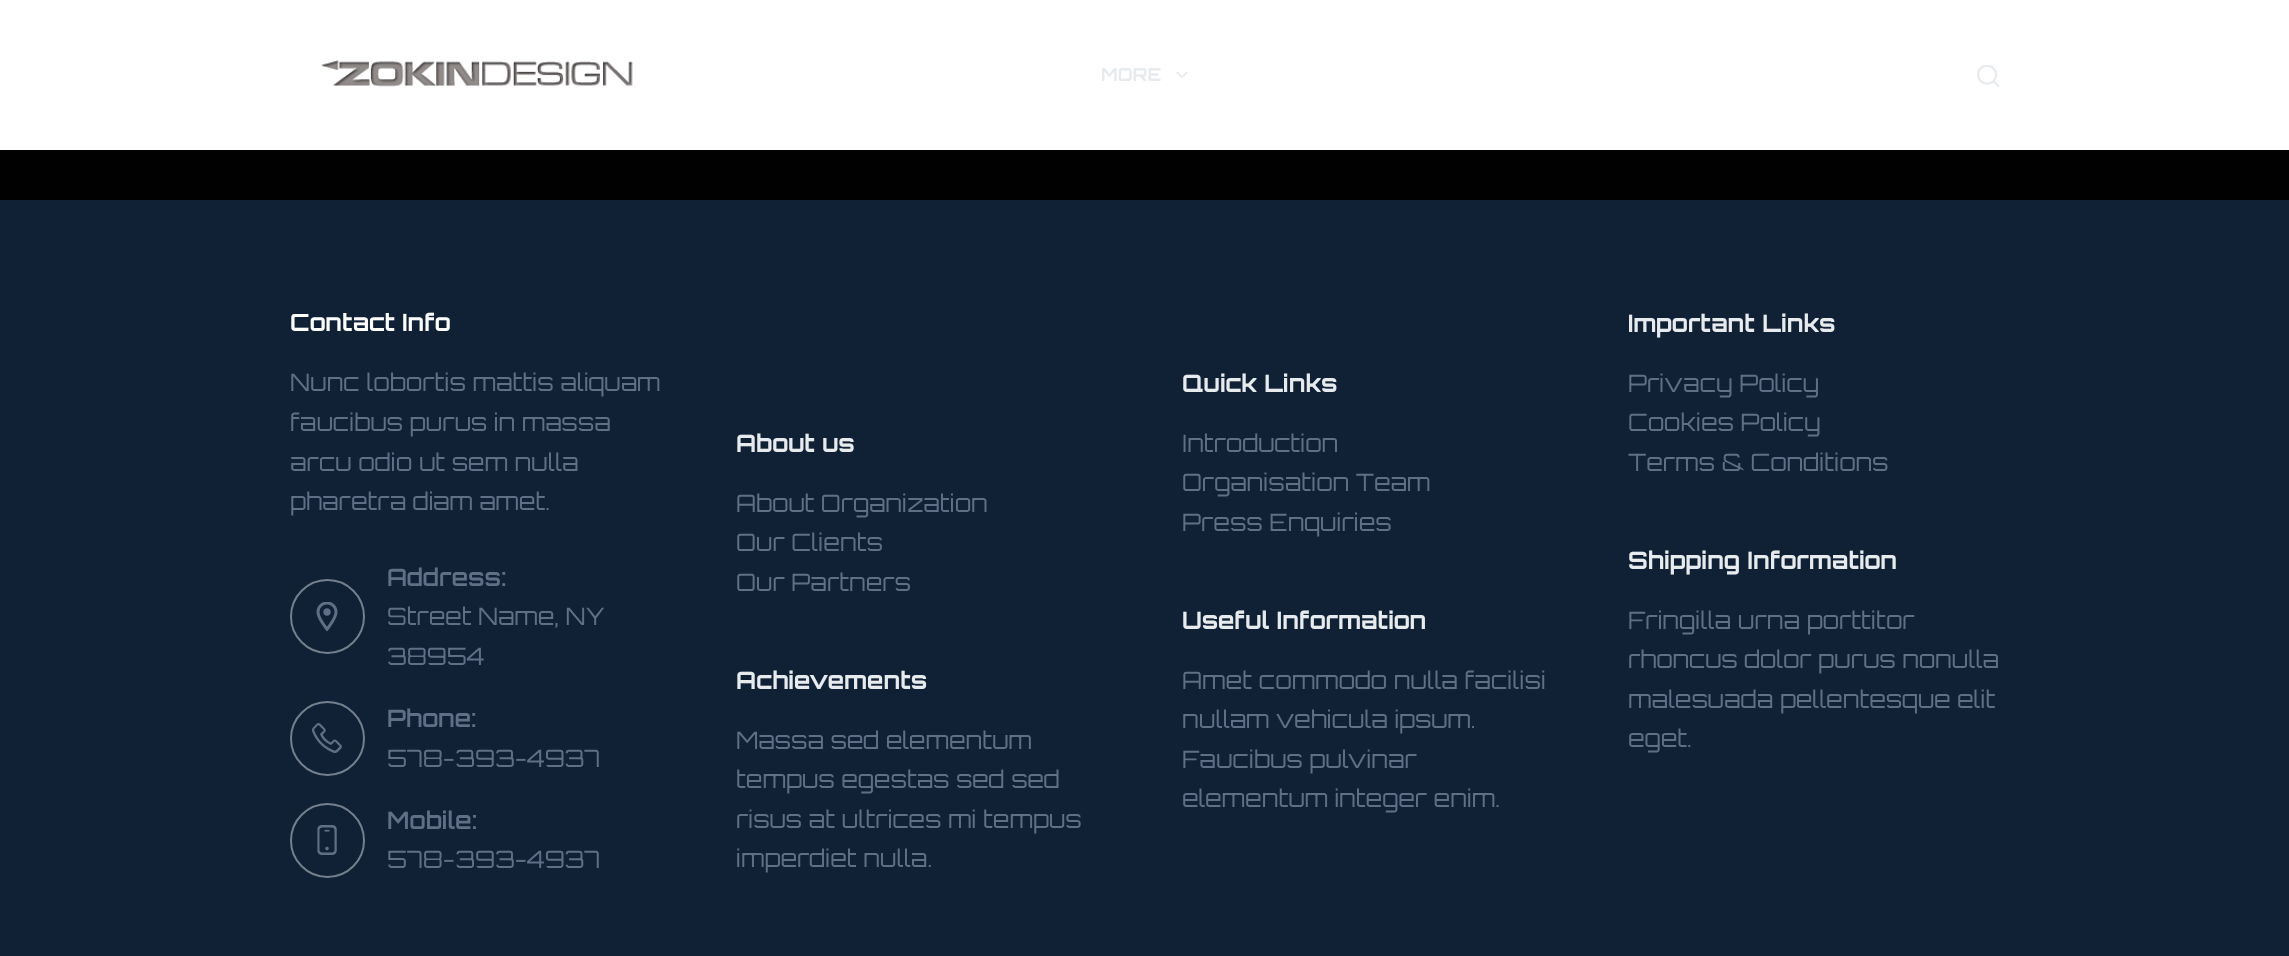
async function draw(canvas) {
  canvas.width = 2289;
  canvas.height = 956;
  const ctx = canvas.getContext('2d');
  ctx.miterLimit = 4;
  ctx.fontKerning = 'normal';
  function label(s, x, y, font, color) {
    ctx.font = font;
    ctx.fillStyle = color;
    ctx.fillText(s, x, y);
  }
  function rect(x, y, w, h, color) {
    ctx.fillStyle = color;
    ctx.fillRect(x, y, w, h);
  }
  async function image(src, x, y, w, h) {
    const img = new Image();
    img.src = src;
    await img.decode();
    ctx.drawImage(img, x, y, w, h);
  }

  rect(0, 0, 2289, 956, '#010101');
  rect(0, 0, 2289, 150, '#fff');
  await image('assets/img1.png', 321, 60, 312, 27);
  label('MORE', 1101, 81, 'bold 18px Orbitron', '#e7ebee');
  await image('assets/img2.png', 1176, 71, 12, 7);
  await image('assets/img3.png', 1977, 65, 23, 22);
  rect(0, 200, 2289, 756, '#102136');
  label('Contact Info', 290, 331, 'bold 23.75px Orbitron', '#fff');
  label('Nunc lobortis mattis aliquam', 290, 391, '24px Orbitron', '#5e7086');
  label('faucibus purus in massa', 290, 431, '24px Orbitron', '#5e7086');
  label('arcu odio ut sem nulla', 290, 471, '24px Orbitron', '#5e7086');
  label('pharetra diam amet.', 290, 510, '24px Orbitron', '#5e7086');
  ctx.beginPath();
  ctx.arc(327.5, 616.5, 36.5, 0, 2 * Math.PI);
  ctx.strokeStyle = '#75808d';
  ctx.lineWidth = 2;
  ctx.stroke();
  await image('assets/img4.png', 316, 602, 22, 30);
  label('Address:', 387, 586, '600 24px Orbitron', '#5e7086');
  label('Street Name, NY', 387, 625, '24px Orbitron', '#5e7086');
  label('38954', 387, 665, '24px Orbitron', '#5e7086');
  ctx.beginPath();
  ctx.arc(327.5, 738.5, 36.5, 0, 2 * Math.PI);
  ctx.stroke();
  await image('assets/img5.png', 312, 723, 30, 30);
  label('Phone:', 387, 727, '600 24px Orbitron', '#5e7086');
  label('578-393-4937', 387, 767, '24px Orbitron', '#5e7086');
  ctx.beginPath();
  ctx.arc(327.5, 840.5, 36.5, 0, 2 * Math.PI);
  ctx.stroke();
  await image('assets/img6.png', 317, 825, 20, 30);
  label('Mobile:', 387, 829, '600 24px Orbitron', '#5e7086');
  label('578-393-4937', 387, 868, '24px Orbitron', '#5e7086');
  label('About us', 736, 452, 'bold 24px Orbitron', '#e7ebee');
  label('About Organization', 736, 512, '24px Orbitron', '#5e7086');
  label('Our Clients', 736, 551, '24px Orbitron', '#5e7086');
  label('Our Partners', 736, 591, '24px Orbitron', '#5e7086');
  label('Achievements', 736, 689, 'bold 24px Orbitron', '#e7ebee');
  label('Massa sed elementum', 736, 749, '24px Orbitron', '#5e7086');
  label('tempus egestas sed sed', 736, 788, '24px Orbitron', '#5e7086');
  label('risus at ultrices mi tempus', 736, 828, '24px Orbitron', '#5e7086');
  label('imperdiet nulla.', 736, 867, '24px Orbitron', '#5e7086');
  label('Quick Links', 1182, 392, 'bold 24px Orbitron', '#e7ebee');
  label('Introduction', 1182, 452, '24px Orbitron', '#5e7086');
  label('Organisation Team', 1182, 491, '24px Orbitron', '#5e7086');
  label('Press Enquiries', 1182, 531, '24px Orbitron', '#5e7086');
  label('Useful Information', 1182, 629, 'bold 24px Orbitron', '#e7ebee');
  label('Amet commodo nulla facilisi', 1182, 689, '24px Orbitron', '#5e7086');
  label('nullam vehicula ipsum.', 1182, 728, '24px Orbitron', '#5e7086');
  label('Faucibus pulvinar', 1182, 768, '24px Orbitron', '#5e7086');
  label('elementum integer enim.', 1182, 807, '24px Orbitron', '#5e7086');
  label('Important Links', 1628, 332, 'bold 24px Orbitron', '#e7ebee');
  label('Privacy Policy', 1628, 392, '24px Orbitron', '#5e7086');
  label('Cookies Policy', 1628, 431, '24px Orbitron', '#5e7086');
  label('Terms & Conditions', 1628, 471, '24px Orbitron', '#5e7086');
  label('Shipping Information', 1628, 569, 'bold 24px Orbitron', '#e7ebee');
  label('Fringilla urna porttitor', 1628, 629, '24px Orbitron', '#5e7086');
  label('rhoncus dolor purus nonulla', 1628, 668, '24px Orbitron', '#5e7086');
  label('malesuada pellentesque elit', 1628, 708, '24px Orbitron', '#5e7086');
  label('eget.', 1628, 747, '24px Orbitron', '#5e7086');
}

draw(document.querySelector('canvas'));
